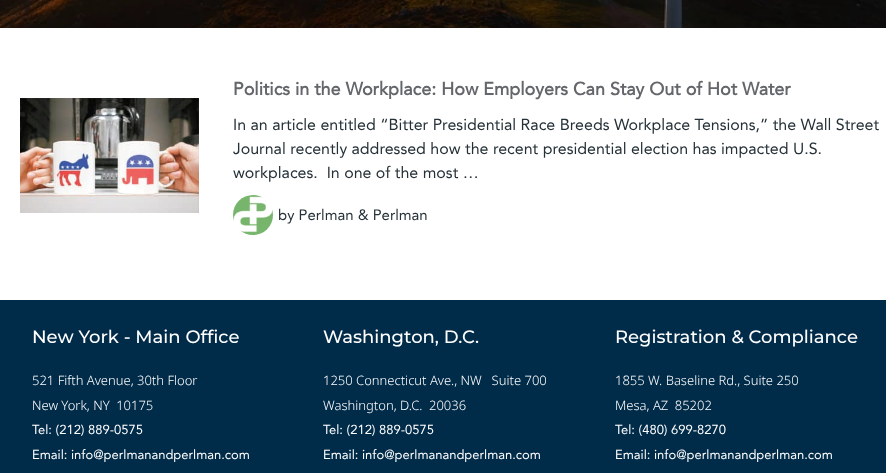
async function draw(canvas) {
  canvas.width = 886;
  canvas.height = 473;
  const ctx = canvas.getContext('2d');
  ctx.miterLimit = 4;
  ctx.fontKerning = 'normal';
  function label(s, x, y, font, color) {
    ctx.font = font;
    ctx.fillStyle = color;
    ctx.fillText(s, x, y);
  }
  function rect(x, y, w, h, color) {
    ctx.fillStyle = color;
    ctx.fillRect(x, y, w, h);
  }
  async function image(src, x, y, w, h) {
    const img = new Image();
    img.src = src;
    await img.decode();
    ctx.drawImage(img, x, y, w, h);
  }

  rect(0, 0, 886, 473, '#fff');
  await image('assets/img1.png', 0, 0, 886, 28);
  await image('assets/img2.png', 20, 98, 179, 115);
  label('Politics in the Workplace: How Employers Can Stay Out of Hot Water', 233, 95, 'bold 18px Avenir', '#63666a');
  label('In an article entitled “Bitter Presidential Race Breeds Workplace Tensions,” the Wall Street', 233, 130, '16px Avenir', '#253137');
  label('Journal recently addressed how the recent presidential election has impacted U.S.', 233, 154, '16px Avenir', '#253137');
  label('workplaces.  In one of the most …', 233, 178, '16px Avenir', '#253137');
  await image('assets/img3.png', 233, 195, 40, 40);
  label('by Perlman & Perlman', 278, 220, '15px Avenir', '#253137');
  rect(0, 300, 886, 173, '#002b49');
  label('New York - Main Office', 32, 343, '500 18px Montserrat', '#fff');
  label('521 Fifth Avenue, 30th Floor', 32, 385, '300 13px Noto Sans', '#fff');
  label('New York, NY 10175', 32, 410, '300 13px Noto Sans', '#fff');
  label('Tel: (212) 889-0575', 32, 434, '13px Avenir', '#fff');
  label('Email: info@perlmanandperlman.com', 32, 459, '13px Avenir', '#fff');
  label('Washington, D.C.', 323, 343, '500 18px Montserrat', '#fff');
  label('1250 Connecticut Ave., NW  Suite 700', 323, 385, '300 13px Noto Sans', '#fff');
  label('Washington, D.C. 20036', 323, 410, '300 13px Noto Sans', '#fff');
  label('Tel: (212) 889-0575', 323, 434, '13px Avenir', '#fff');
  label('Email: info@perlmanandperlman.com', 323, 459, '13px Avenir', '#fff');
  label('Registration & Compliance', 615, 343, '500 18px Montserrat', '#fff');
  label('1855 W. Baseline Rd., Suite 250', 615, 385, '300 13px Noto Sans', '#fff');
  label('Mesa, AZ 85202', 615, 410, '300 13px Noto Sans', '#fff');
  label('Tel: (480) 699-8270', 615, 434, '13px Avenir', '#fff');
  label('Email: info@perlmanandperlman.com', 615, 459, '13px Avenir', '#fff');
}

draw(document.querySelector('canvas'));
